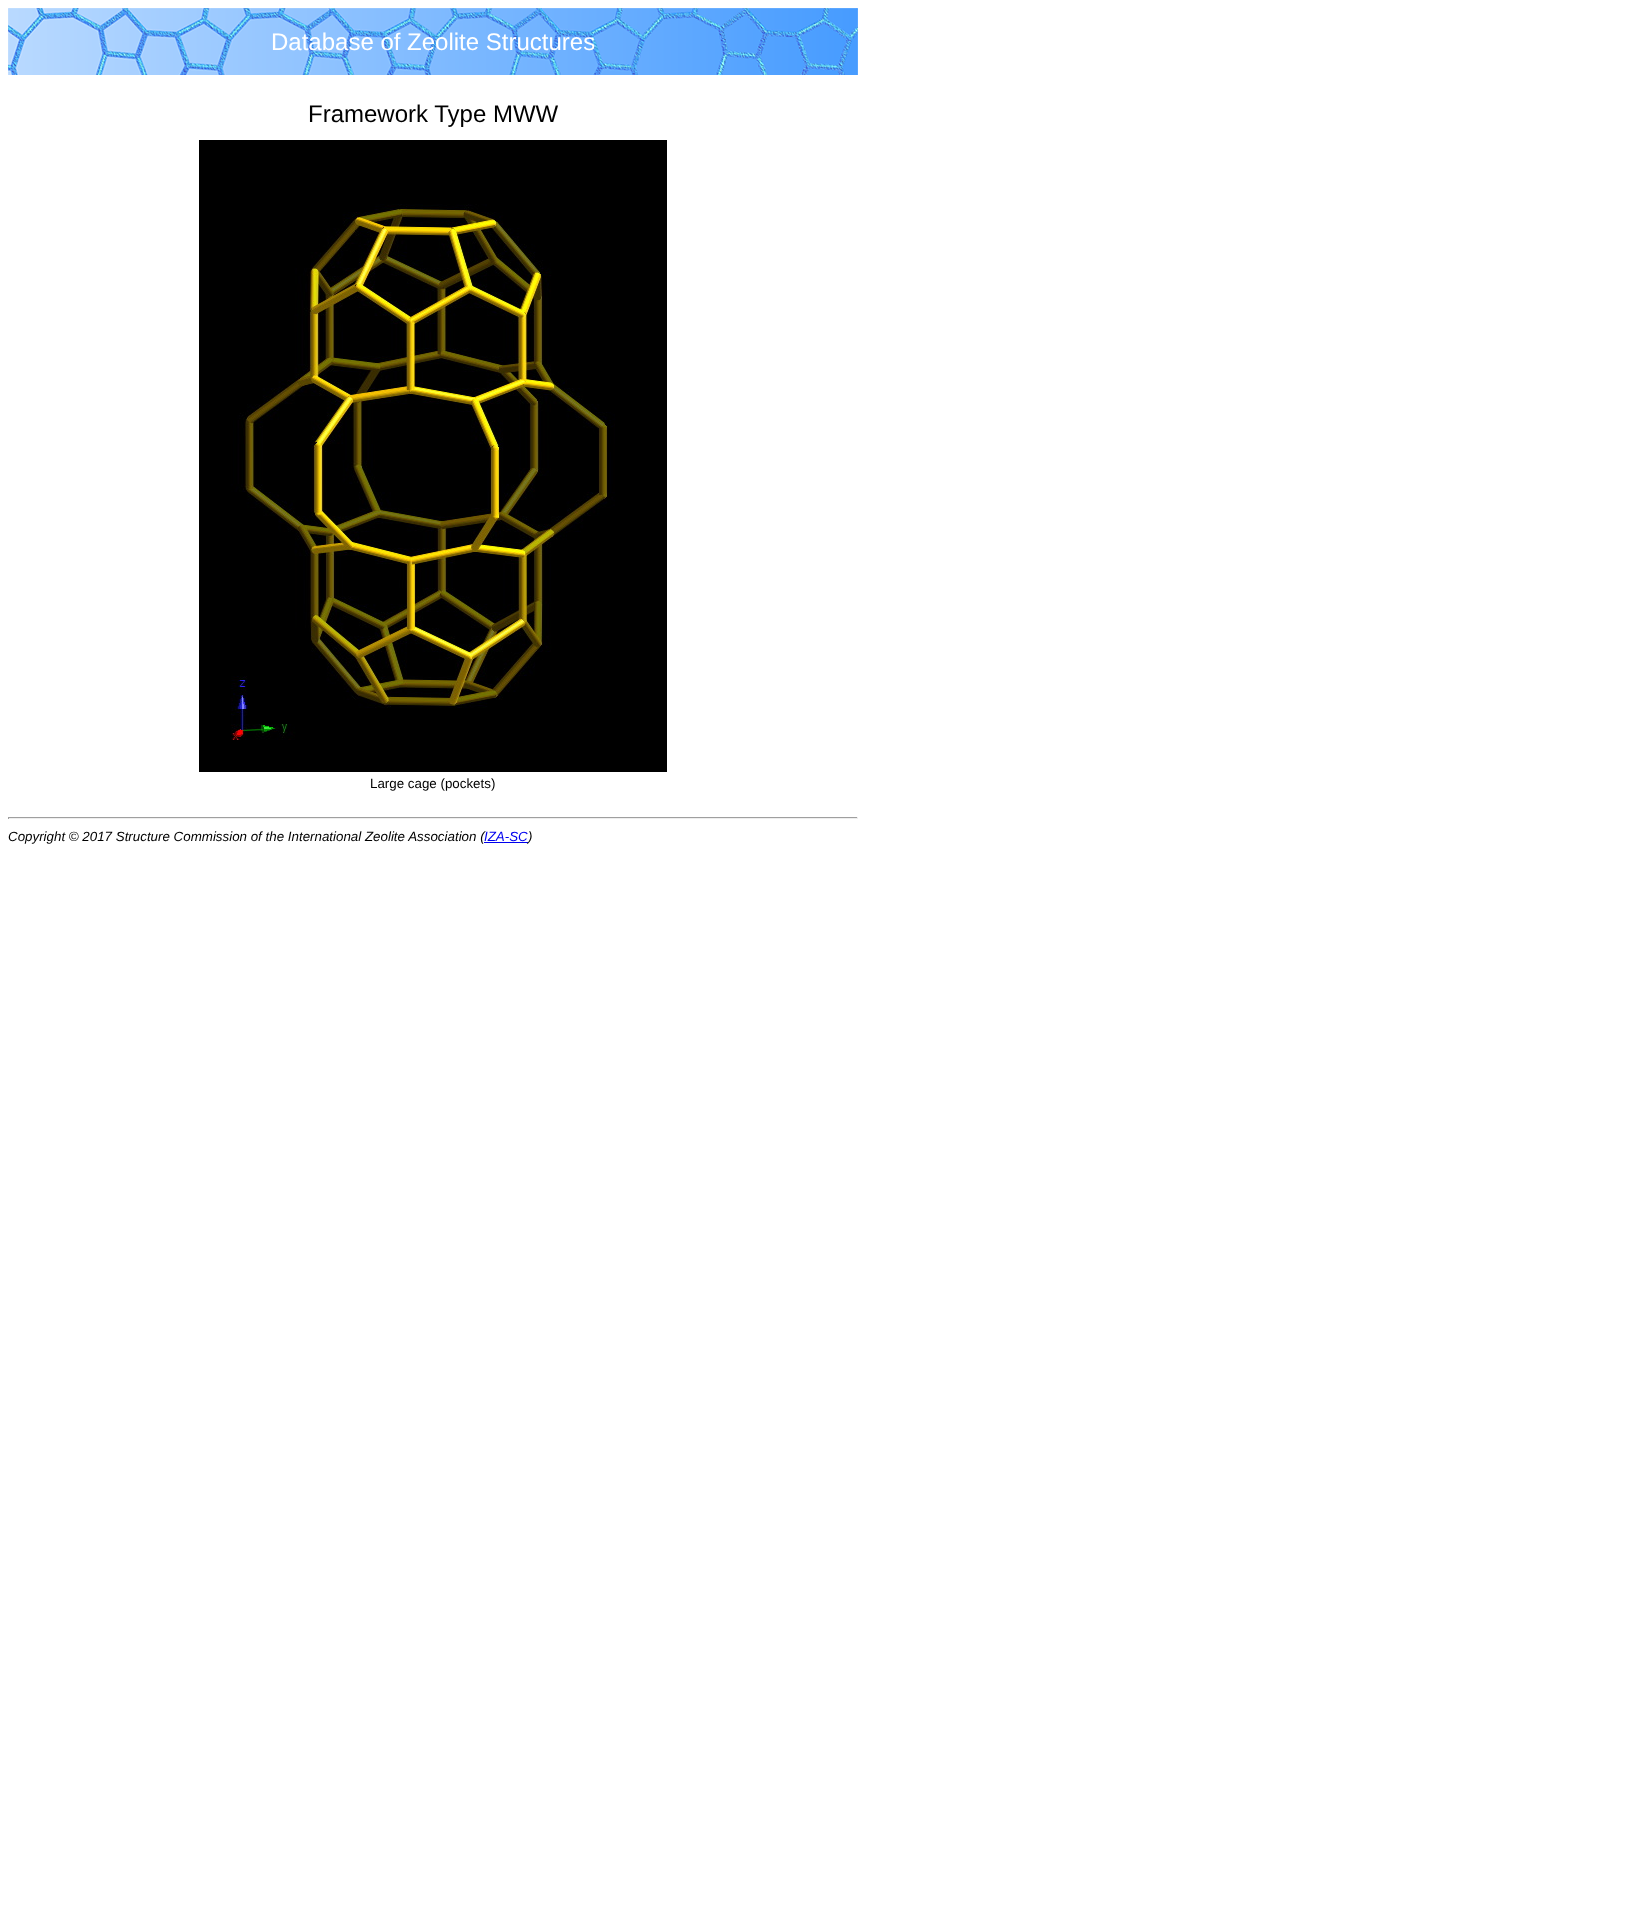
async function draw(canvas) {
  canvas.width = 1631;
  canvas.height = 1908;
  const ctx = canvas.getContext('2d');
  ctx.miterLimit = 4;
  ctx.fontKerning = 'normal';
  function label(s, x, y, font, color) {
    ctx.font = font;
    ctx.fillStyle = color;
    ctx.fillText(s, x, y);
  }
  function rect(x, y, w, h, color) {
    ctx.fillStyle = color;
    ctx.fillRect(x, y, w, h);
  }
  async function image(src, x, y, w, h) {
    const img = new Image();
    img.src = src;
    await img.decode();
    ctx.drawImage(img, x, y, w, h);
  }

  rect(0, 0, 1631, 1908, '#fff');
  await image('assets/img1.png', 8, 8, 850, 67);
  label('Database of Zeolite Structures', 271, 50, '24px Liberation Sans', '#fff');
  label('Framework Type MWW', 308, 122, '24px Liberation Sans', '#000');
  await image('assets/img2.png', 199, 140, 468, 632);
  label('Large cage (pockets)', 370, 788, '13.35px Liberation Sans', '#000');
  rect(8, 817, 850, 1, '#9f9f9f');
  rect(857, 817, 1, 2, '#eee');
  rect(8, 818, 850, 1, '#eee');
  rect(8, 817, 1, 2, '#9f9f9f');
  label('Copyright © 2017 Structure Commission of the International Zeolite Association (', 8, 841, 'italic 13.35px Liberation Sans', '#000');
  rect(484, 842, 44, 1, '#00e');
  label('IZA-SC', 484, 841, 'italic 13.35px Liberation Sans', '#00e');
  label(')', 528, 841, 'italic 13.35px Liberation Sans', '#000');
}

draw(document.querySelector('canvas'));
